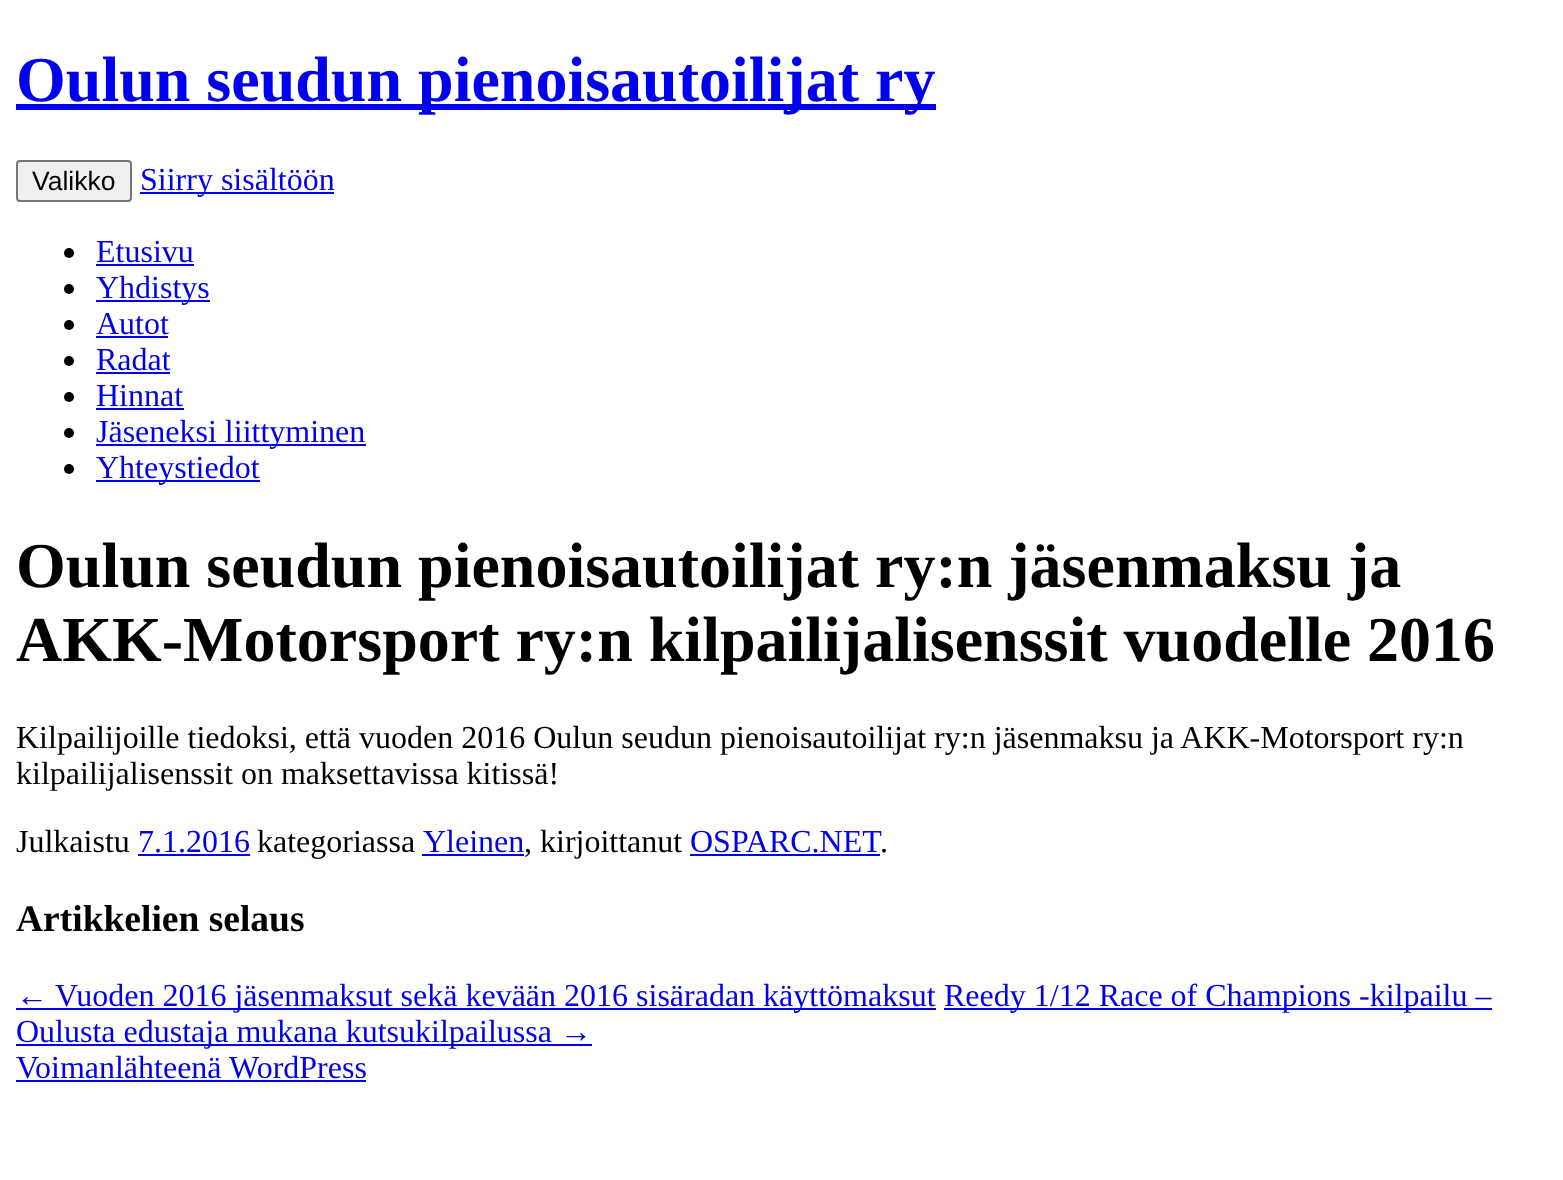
async function draw(canvas) {
  canvas.width = 1563;
  canvas.height = 1180;
  const ctx = canvas.getContext('2d');
  ctx.miterLimit = 4;
  ctx.fontKerning = 'normal';
  function label(s, x, y, font, color) {
    ctx.font = font;
    ctx.fillStyle = color;
    ctx.fillText(s, x, y);
  }
  function rect(x, y, w, h, color) {
    ctx.fillStyle = color;
    ctx.fillRect(x, y, w, h);
  }

  rect(0, 0, 1563, 1180, '#fff');
  rect(16, 104, 920, 6, '#00e');
  label('Oulun seudun pienoisautoilijat ry', 16, 101, 'bold 64px Liberation Serif', '#00e');
  ctx.fillStyle = '#efefef';
  ctx.beginPath();
  ctx.roundRect(17, 161, 114, 40, 3);
  ctx.fill();
  ctx.strokeStyle = '#767676';
  ctx.lineWidth = 2;
  ctx.stroke();
  label('Valikko', 32, 190, '26.5px Liberation Sans', '#000');
  rect(140, 192, 194, 2, '#00e');
  label('Siirry sisältöön', 140, 190, '32px Liberation Serif', '#00e');
  ctx.fillStyle = '#000';
  ctx.beginPath();
  ctx.arc(69, 253, 5, 0, 2 * Math.PI);
  ctx.fill();
  label('Etusivu', 96, 262, '32px Liberation Serif', '#00e');
  rect(96, 264, 98, 2, '#00e');
  ctx.fillStyle = '#000';
  ctx.beginPath();
  ctx.arc(69, 289, 5, 0, 2 * Math.PI);
  ctx.fill();
  rect(96, 300, 114, 2, '#00e');
  label('Yhdistys', 96, 298, '32px Liberation Serif', '#00e');
  ctx.fillStyle = '#000';
  ctx.beginPath();
  ctx.arc(69, 325, 5, 0, 2 * Math.PI);
  ctx.fill();
  label('Autot', 96, 334, '32px Liberation Serif', '#00e');
  rect(96, 336, 72, 2, '#00e');
  ctx.fillStyle = '#000';
  ctx.beginPath();
  ctx.arc(69, 361, 5, 0, 2 * Math.PI);
  ctx.fill();
  label('Radat', 96, 370, '32px Liberation Serif', '#00e');
  rect(96, 372, 74, 2, '#00e');
  ctx.fillStyle = '#000';
  ctx.beginPath();
  ctx.arc(69, 397, 5, 0, 2 * Math.PI);
  ctx.fill();
  label('Hinnat', 96, 406, '32px Liberation Serif', '#00e');
  rect(96, 408, 88, 2, '#00e');
  ctx.fillStyle = '#000';
  ctx.beginPath();
  ctx.arc(69, 433, 5, 0, 2 * Math.PI);
  ctx.fill();
  rect(96, 444, 270, 2, '#00e');
  label('Jäseneksi liittyminen', 96, 442, '32px Liberation Serif', '#00e');
  ctx.fillStyle = '#000';
  ctx.beginPath();
  ctx.arc(69, 469, 5, 0, 2 * Math.PI);
  ctx.fill();
  rect(96, 480, 164, 2, '#00e');
  label('Yhteystiedot', 96, 478, '32px Liberation Serif', '#00e');
  label('Oulun seudun pienoisautoilijat ry:n jäsenmaksu ja', 16, 587, 'bold 64px Liberation Serif', '#000');
  label('AKK-Motorsport ry:n kilpailijalisenssit vuodelle 2016', 16, 661, 'bold 64px Liberation Serif', '#000');
  label('Kilpailijoille tiedoksi, että vuoden 2016 Oulun seudun pienoisautoilijat ry:n jäsenmaksu ja AKK-Motorsport ry:n', 16, 748, '32px Liberation Serif', '#000');
  label('kilpailijalisenssit on maksettavissa kitissä!', 16, 784, '32px Liberation Serif', '#000');
  label('Julkaistu', 16, 852, '32px Liberation Serif', '#000');
  label('7.1.2016', 138, 852, '32px Liberation Serif', '#00e');
  rect(138, 854, 112, 2, '#00e');
  label('kategoriassa', 257, 852, '32px Liberation Serif', '#000');
  label('Yleinen', 423, 852, '32px Liberation Serif', '#00e');
  rect(422, 854, 102, 2, '#00e');
  label(', kirjoittanut', 524, 852, '32px Liberation Serif', '#000');
  label('OSPARC.NET', 690, 852, '32px Liberation Serif', '#00e');
  rect(690, 854, 190, 2, '#00e');
  label('.', 880, 852, '32px Liberation Serif', '#000');
  label('Artikkelien selaus', 16, 931, 'bold 37.5px Liberation Serif', '#000');
  label('←', 16, 1006, '32px Liberation Serif', '#00e');
  rect(16, 1008, 920, 2, '#00e');
  label('Vuoden 2016 jäsenmaksut sekä kevään 2016 sisäradan käyttömaksut', 55, 1006, '32px Liberation Serif', '#00e');
  rect(944, 1008, 548, 2, '#00e');
  label('Reedy 1/12 Race of Champions -kilpailu –', 944, 1006, '32px Liberation Serif', '#00e');
  rect(16, 1044, 576, 2, '#00e');
  label('Oulusta edustaja mukana kutsukilpailussa →', 16, 1042, '32px Liberation Serif', '#00e');
  label('Voimanlähteenä WordPress', 16, 1078, '32px Liberation Serif', '#00e');
  rect(16, 1080, 350, 2, '#00e');
}

draw(document.querySelector('canvas'));
